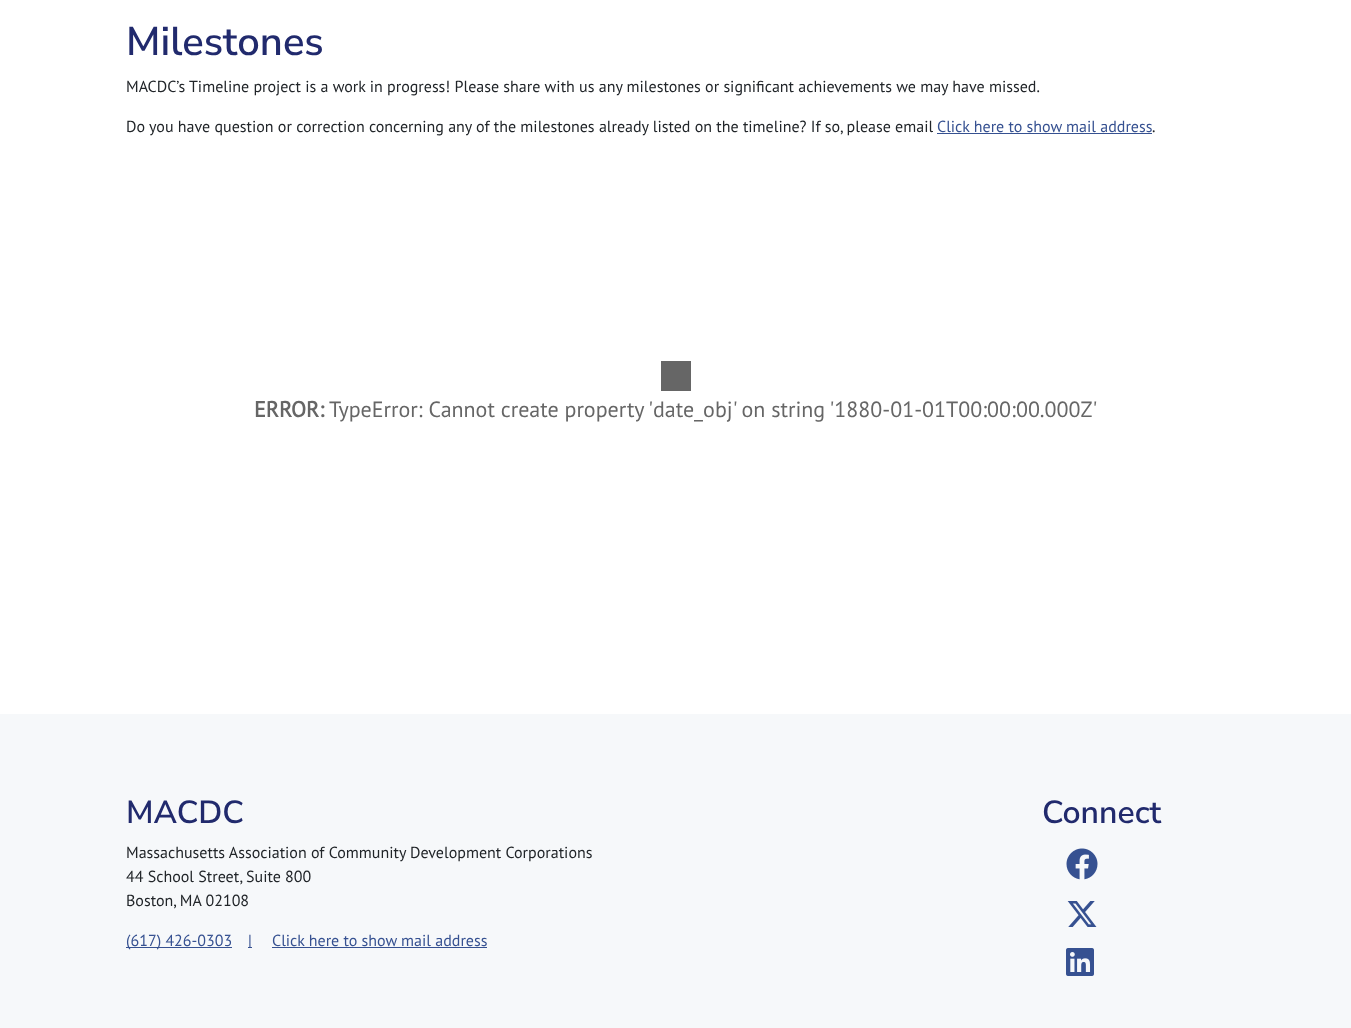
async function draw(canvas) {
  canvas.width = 1351;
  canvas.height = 1028;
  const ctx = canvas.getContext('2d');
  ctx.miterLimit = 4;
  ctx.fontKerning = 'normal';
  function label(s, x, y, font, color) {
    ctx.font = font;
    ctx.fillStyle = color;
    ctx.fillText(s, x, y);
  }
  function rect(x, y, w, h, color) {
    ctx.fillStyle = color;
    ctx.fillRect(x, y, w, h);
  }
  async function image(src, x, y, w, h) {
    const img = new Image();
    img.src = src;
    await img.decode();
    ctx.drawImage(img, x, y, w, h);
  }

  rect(0, 0, 1351, 1028, '#fff');
  label('Milestones', 126, 55, '200 40px Nunito Sans', '#212a6d');
  label('MACDC’s Timeline project is a work in progress! Please share with us any milestones or significant achievements we may have missed.', 126, 92, '16px PT Sans', '#212529');
  label('Do you have question or correction concerning any of the milestones already listed on the timeline? If so, please email', 126, 132, '16px PT Sans', '#212529');
  label('Click here to show mail address', 937, 132, '16px PT Sans', '#365191');
  rect(937, 133, 215, 1, '#365191');
  label('.', 1152, 132, '16px PT Sans', '#212529');
  rect(661, 361, 30, 30, '#666');
  label('ERROR:', 254, 417, 'bold 22px PT Sans', '#666');
  label('TypeError: Cannot create property \'date_obj\' on string \'1880-01-01T00:00:00.000Z\'', 329, 417, '22px PT Sans', '#666');
  rect(0, 714, 1351, 314, '#f6f8fa');
  label('MACDC', 126, 823, '200 32px Nunito Sans', '#212a6d');
  label('Massachusetts Association of Community Development Corporations', 126, 858, '16px PT Sans', '#212529');
  label('44 School Street, Suite 800', 126, 882, '16px PT Sans', '#212529');
  label('Boston, MA 02108', 126, 906, '16px PT Sans', '#212529');
  rect(126, 947, 106, 1, '#365191');
  label('(617) 426-0303', 126, 946, '16px PT Sans', '#365191');
  rect(248, 947, 4, 1, '#365191');
  label('|', 248, 946, '16px PT Sans', '#365191');
  label('Click here to show mail address', 272, 946, '16px PT Sans', '#365191');
  rect(272, 947, 215, 1, '#365191');
  label('Connect', 1042, 823, '200 32px Nunito Sans', '#212a6d');
  await image('assets/img1.png', 1066, 848, 32, 32);
  await image('assets/img2.png', 1067, 901, 30, 26);
  await image('assets/img3.png', 1066, 948, 28, 28);
}

draw(document.querySelector('canvas'));
